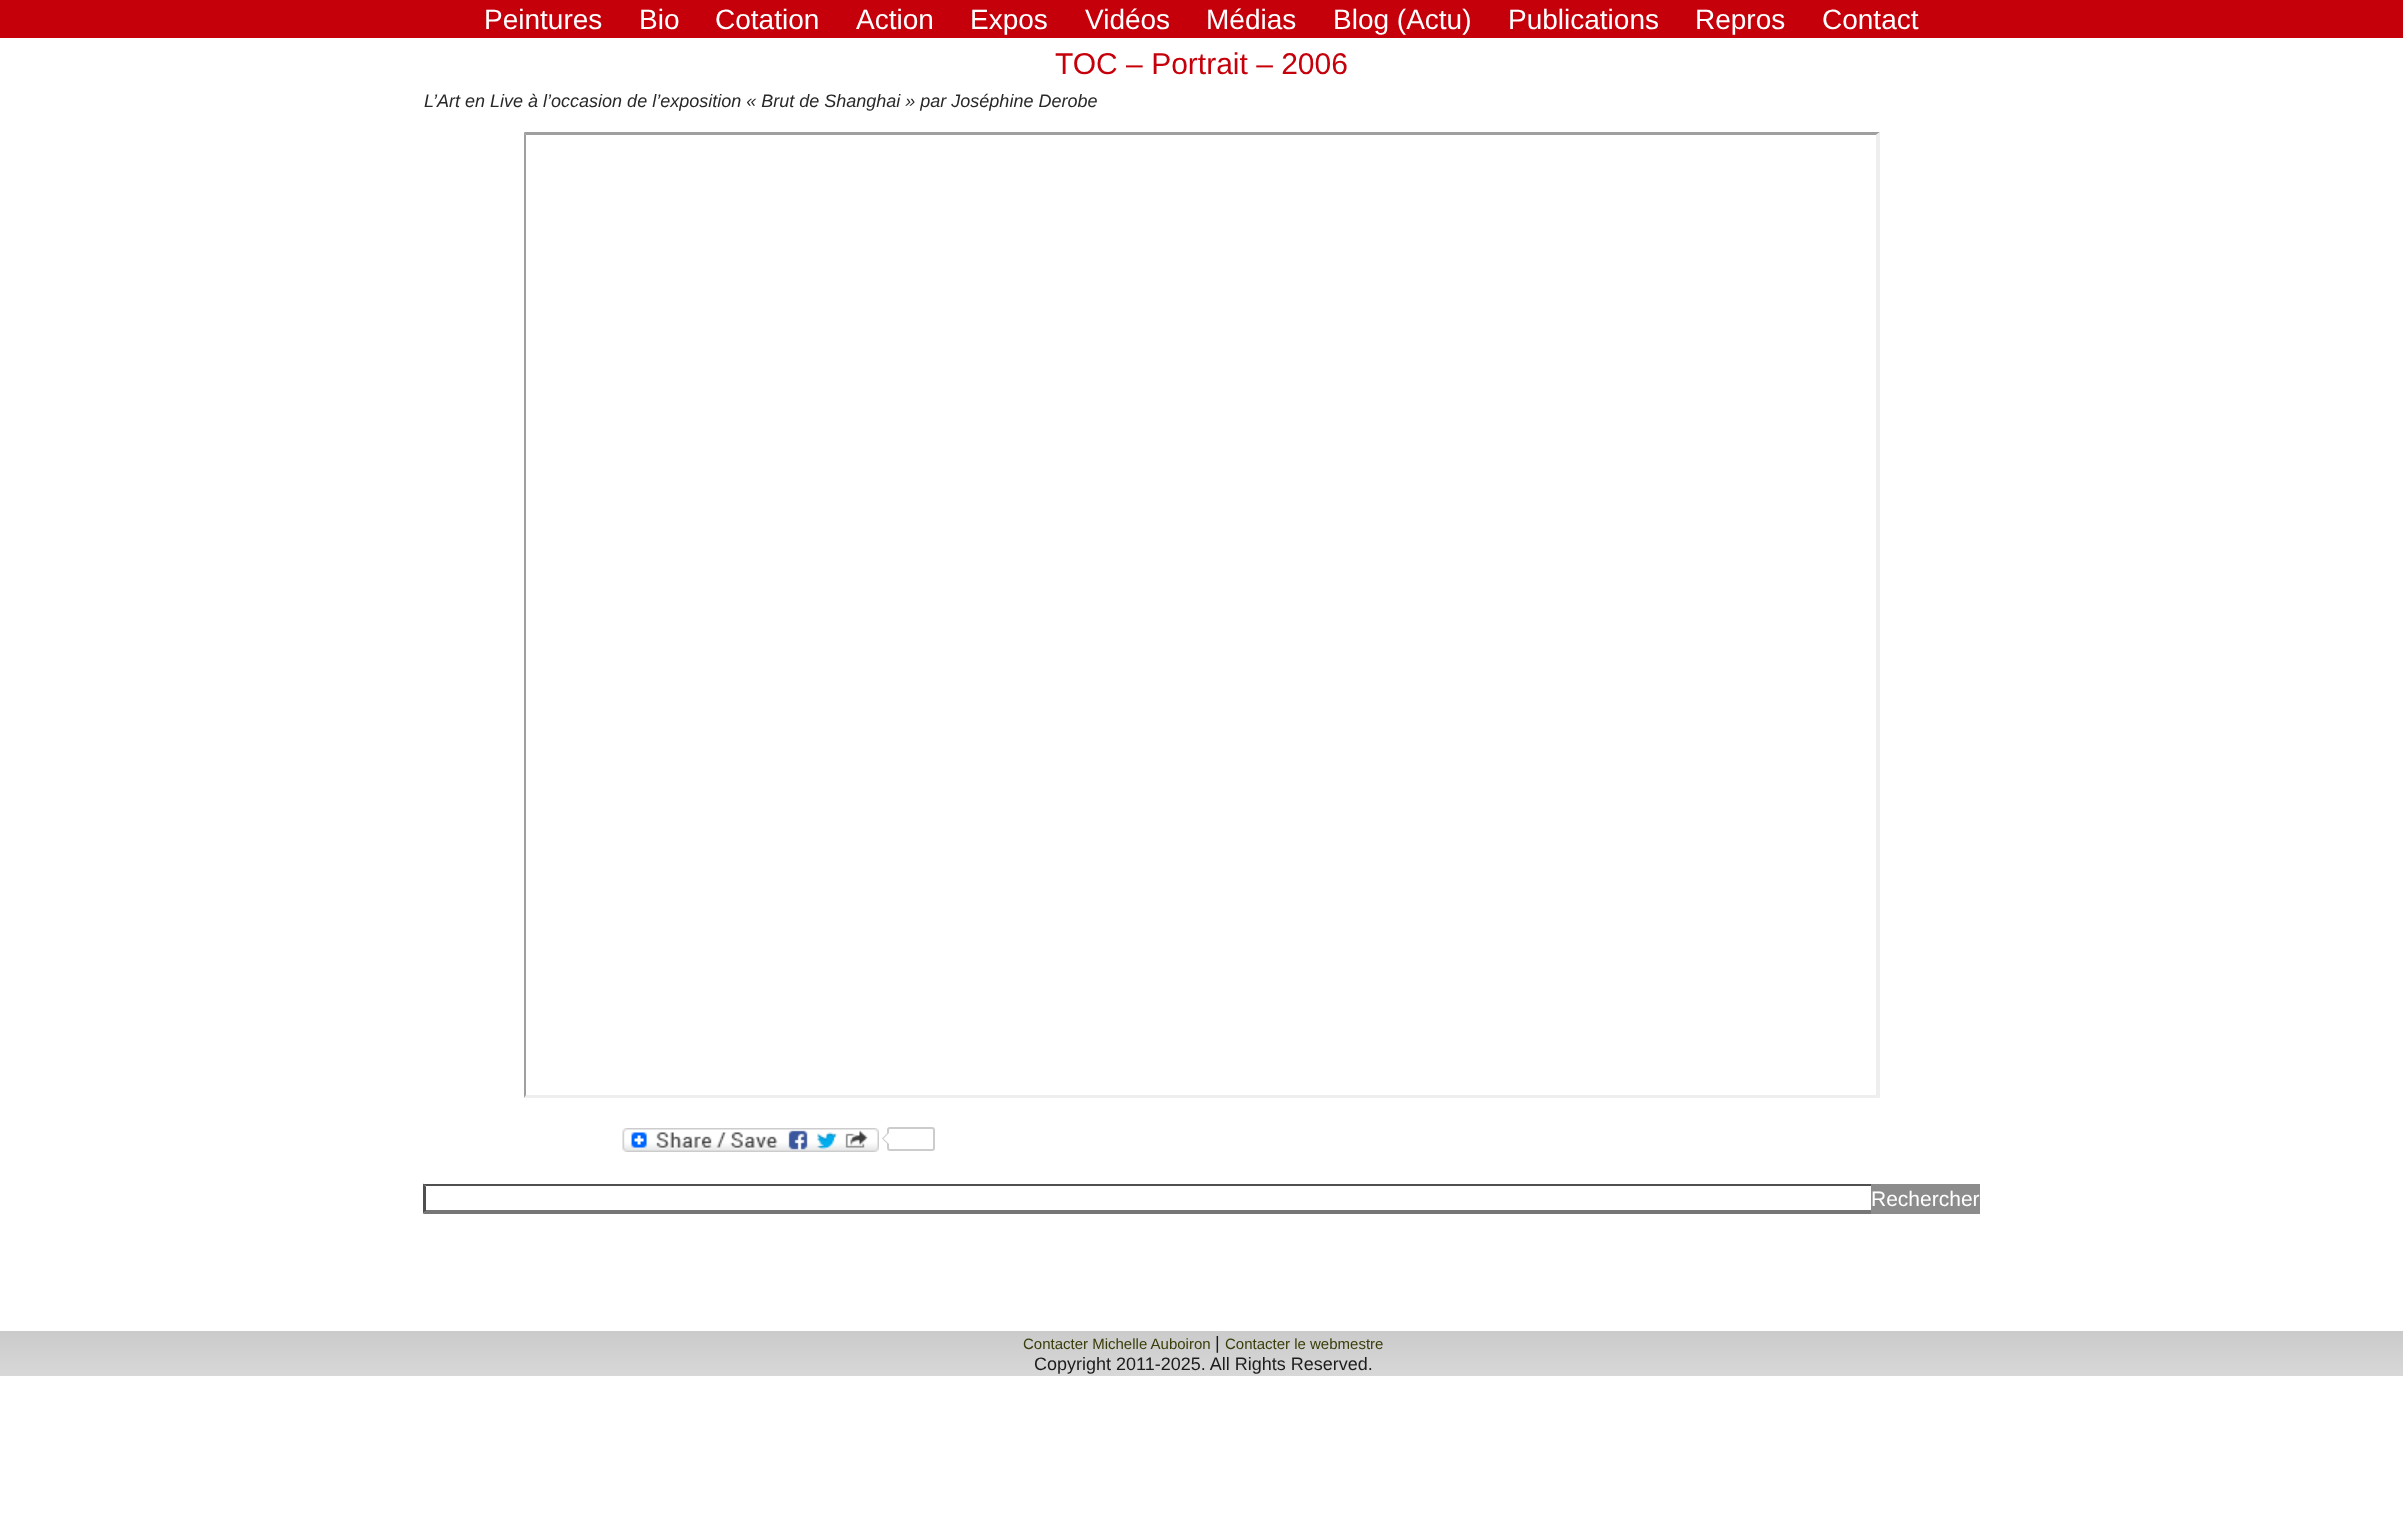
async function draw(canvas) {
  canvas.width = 2403;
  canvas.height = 1525;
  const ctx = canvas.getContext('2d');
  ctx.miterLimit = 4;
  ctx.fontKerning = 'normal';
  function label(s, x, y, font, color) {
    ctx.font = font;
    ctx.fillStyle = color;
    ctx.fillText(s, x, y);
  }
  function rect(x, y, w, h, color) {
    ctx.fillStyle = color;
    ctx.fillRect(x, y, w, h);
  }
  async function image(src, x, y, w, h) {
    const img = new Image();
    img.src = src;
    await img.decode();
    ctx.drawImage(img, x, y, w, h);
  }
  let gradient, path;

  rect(0, 0, 2403, 1525, '#fff');
  rect(0, 0, 2403, 38, '#c5000b');
  label('Peintures', 484, 29, '28px Liberation Sans', '#fff');
  label('Bio', 639, 29, '28px Liberation Sans', '#fff');
  label('Cotation', 715, 29, '28px Liberation Sans', '#fff');
  label('Action', 856, 29, '28px Liberation Sans', '#fff');
  label('Expos', 970, 29, '28px Liberation Sans', '#fff');
  label('Vidéos', 1085, 29, '28px Liberation Sans', '#fff');
  label('Médias', 1206, 29, '28px Liberation Sans', '#fff');
  label('Blog (Actu)', 1333, 29, '28px Liberation Sans', '#fff');
  label('Publications', 1508, 29, '28px Liberation Sans', '#fff');
  label('Repros', 1695, 29, '28px Liberation Sans', '#fff');
  label('Contact', 1822, 29, '28px Liberation Sans', '#fff');
  label('TOC – Portrait – 2006', 1055, 74, '30px Liberation Sans', '#c5000b');
  label('L’Art en Live à l’occasion de l’exposition « Brut de Shanghai » par Joséphine Derobe', 424, 107, 'italic 18px Liberation Sans', '#292929');
  ctx.fillStyle = '#9f9f9f';
  path = new Path2D('M524 132H1880L1876 135H526Z');
  ctx.fill(path);
  ctx.fillStyle = '#eee';
  path = new Path2D('M1880 132V1098L1876 1095V135Z');
  ctx.fill(path);
  path = new Path2D('M1880 1098H524L526 1095H1876Z');
  ctx.fill(path);
  ctx.fillStyle = '#9f9f9f';
  path = new Path2D('M524 1098V132L526 135V1095Z');
  ctx.fill(path);
  await image('assets/img1.png', 622, 1128, 257, 24);
  ctx.beginPath();
  ctx.roundRect(888, 1128, 46, 22, 2);
  ctx.strokeStyle = '#ccc';
  ctx.lineWidth = 2;
  ctx.stroke();
  ctx.fillStyle = '#ccc';
  path = new Path2D('M888 1132.5V1144.5L882 1138.5Z');
  ctx.fill(path);
  ctx.fillStyle = '#fff';
  path = new Path2D('M889.5 1132.5V1144.5L883.5 1138.5Z');
  ctx.fill(path);
  ctx.fillStyle = '#4f4f4f';
  path = new Path2D('M423 1184H1980L1977 1186H426Z');
  ctx.fill(path);
  ctx.fillStyle = '#767676';
  path = new Path2D('M1980 1214H423L426 1210H1977Z');
  ctx.fill(path);
  ctx.fillStyle = '#4f4f4f';
  path = new Path2D('M423 1213.5V1183.5L426 1186.5V1210.5Z');
  ctx.fill(path);
  rect(1871, 1184, 109, 30, '#8c8c8c');
  label('Rechercher', 1871, 1206, '21px Liberation Sans', '#fff');
  gradient = ctx.createLinearGradient(1202, 1330, 1202, 1376);
  gradient.addColorStop(0, '#cacaca');
  gradient.addColorStop(0.14, '#ccc');
  gradient.addColorStop(1, '#d8d8d8');
  ctx.fillStyle = gradient;
  ctx.fillRect(0, 1331, 2403, 45);
  label('Contacter Michelle Auboiron', 1023, 1349, '15px Liberation Sans', '#3a3d0a');
  label('|', 1215, 1349, '18px Liberation Sans', '#1c1c1c');
  label('Contacter le webmestre', 1225, 1349, '15px Liberation Sans', '#3a3d0a');
  label('Copyright 2011-2025. All Rights Reserved.', 1034, 1370, '18px Liberation Sans', '#1c1c1c');
}

draw(document.querySelector('canvas'));
